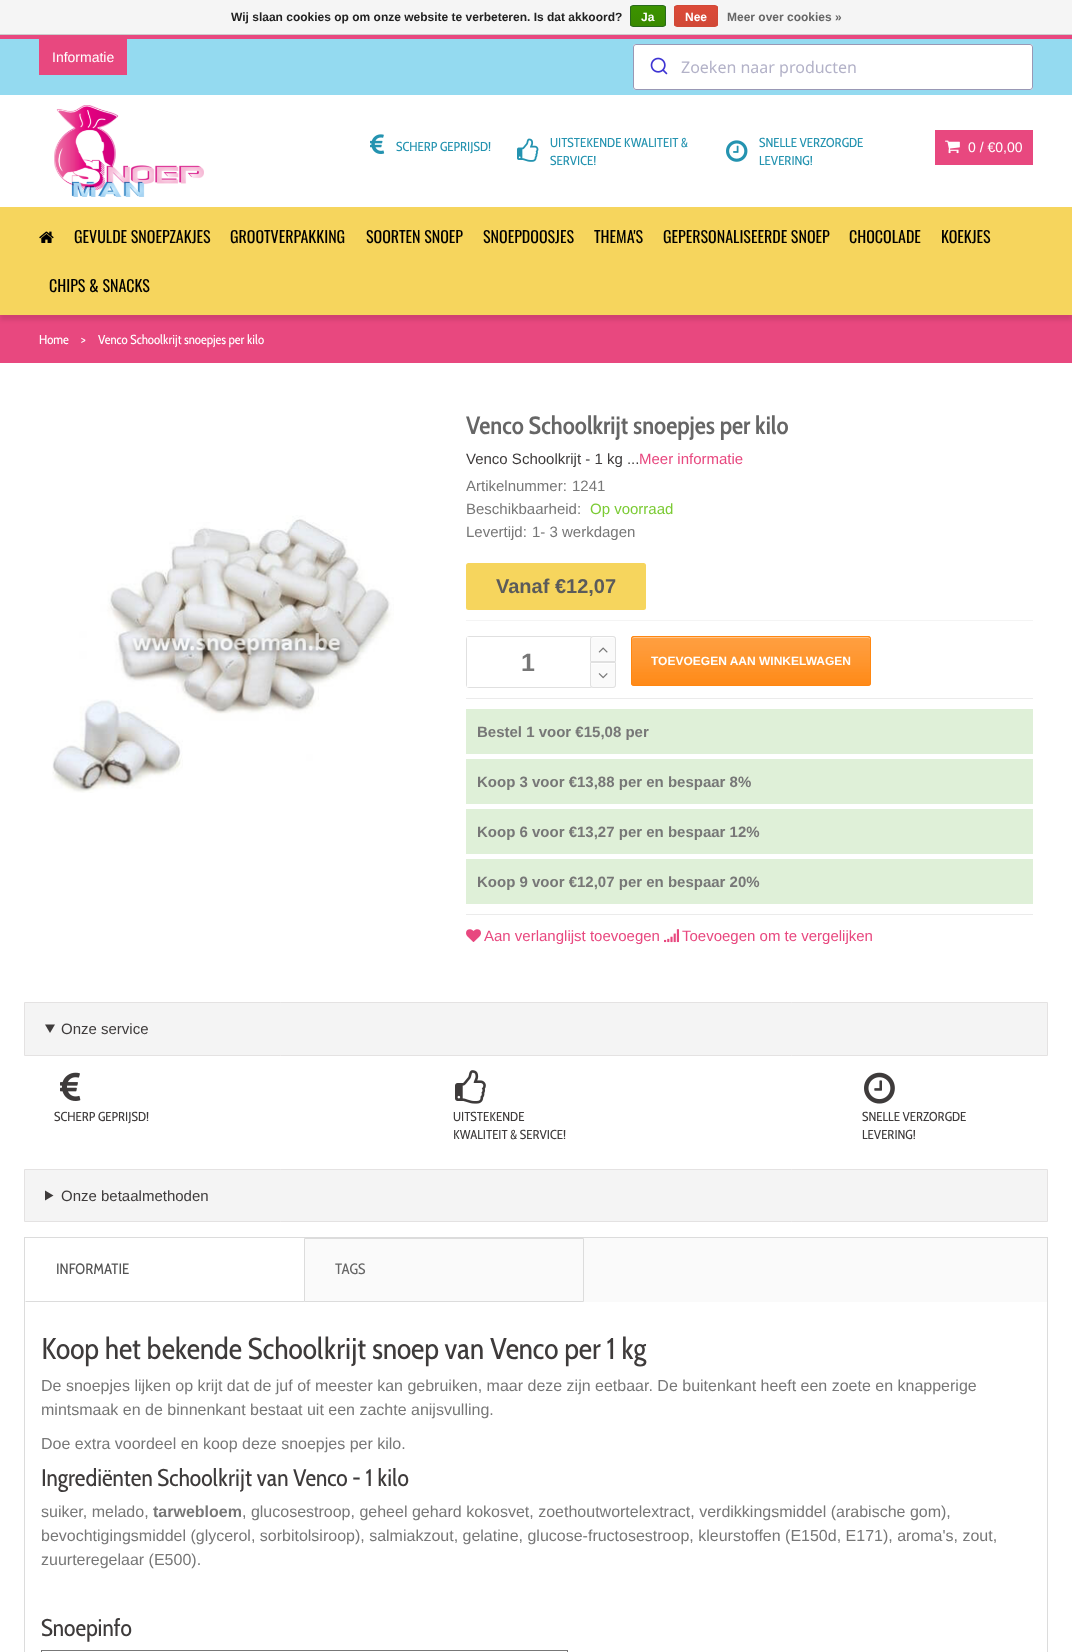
async function draw(canvas) {
  canvas.width = 1072;
  canvas.height = 1652;
  const ctx = canvas.getContext('2d');
  ctx.miterLimit = 4;
  ctx.fontKerning = 'normal';
  function label(s, x, y, font, color) {
    ctx.font = font;
    ctx.fillStyle = color;
    ctx.fillText(s, x, y);
  }
  function rect(x, y, w, h, color) {
    ctx.fillStyle = color;
    ctx.fillRect(x, y, w, h);
  }
  function roundedRect(x, y, w, h, r, color) {
    ctx.fillStyle = color;
    ctx.beginPath();
    ctx.roundRect(x, y, w, h, r);
    ctx.fill();
  }
  async function image(src, x, y, w, h) {
    const img = new Image();
    img.src = src;
    await img.decode();
    ctx.drawImage(img, x, y, w, h);
  }
  let gradient, path;

  rect(0, 0, 1072, 1652, '#fff');
  rect(0, 0, 1072, 34, '#f5f5f5');
  rect(0, 34, 1072, 1, '#ccc');
  label('Wij slaan cookies op om onze website te verbeteren. Is dat akkoord?', 231, 21, 'bold 12px Liberation Sans', '#222');
  ctx.save();
  ctx.beginPath();
  ctx.roundRect(630, 5, 36, 22, 3);
  ctx.clip();
  gradient = ctx.createLinearGradient(648, 6, 648, 26);
  gradient.addColorStop(0, '#3c9300');
  gradient.addColorStop(1, '#398a00');
  ctx.fillStyle = gradient;
  ctx.fillRect(630, 6, 36, 20);
  ctx.restore();
  ctx.beginPath();
  ctx.roundRect(630.5, 5.5, 35, 21, 2.5);
  ctx.strokeStyle = '#29691d';
  ctx.stroke();
  label('Ja', 641, 21, 'bold 12px Liberation Sans', '#fff');
  ctx.save();
  ctx.beginPath();
  ctx.roundRect(674, 5, 44, 22, 3);
  ctx.clip();
  gradient = ctx.createLinearGradient(696, 6, 696, 26);
  gradient.addColorStop(0, '#dc4a38');
  gradient.addColorStop(1, '#d14836');
  ctx.fillStyle = gradient;
  ctx.fillRect(674, 6, 44, 20);
  ctx.restore();
  ctx.beginPath();
  ctx.roundRect(674.5, 5.5, 43, 21, 2.5);
  ctx.strokeStyle = '#d14836';
  ctx.stroke();
  label('Nee', 685, 21, 'bold 12px Liberation Sans', '#fff');
  label('Meer over cookies »', 727, 21, 'bold 12px Liberation Sans', '#666');
  rect(0, 39, 1072, 56, '#94daf0');
  rect(0, 35, 1072, 4, '#e8487f');
  rect(39, 39, 88, 36, '#e8487f');
  label('Informatie', 52, 62, '14px Liberation Sans', '#fff');
  roundedRect(633, 44, 400, 46, 3, '#fff');
  ctx.beginPath();
  ctx.roundRect(633.5, 44.5, 399, 45, 2.5);
  ctx.strokeStyle = '#807ea3cc';
  ctx.stroke();
  await image('assets/img1.png', 650, 57, 18, 18);
  label('Zoeken naar producten', 681, 73, '16px Noto Sans', '#b3b2c8');
  await image('assets/img2.png', 54, 105, 150, 92);
  await image('assets/img3.png', 370, 134, 15, 20);
  label('SCHERP GEPRIJSD!', 396, 151, '13px Cabin Condensed', '#2493b0');
  await image('assets/img4.png', 517, 138, 22, 24);
  label('UITSTEKENDE KWALITEIT &', 550, 147, '13px Cabin Condensed', '#2493b0');
  label('SERVICE!', 550, 165, '13px Cabin Condensed', '#2493b0');
  await image('assets/img5.png', 726, 140, 22, 22);
  label('SNELLE VERZORGDE', 759, 147, '13px Cabin Condensed', '#2493b0');
  label('LEVERING!', 759, 165, '13px Cabin Condensed', '#2493b0');
  rect(935, 130, 98, 35, '#e8487f');
  await image('assets/img6.png', 945, 140, 15, 14);
  label('0 / €0,00', 968, 152, '14px Liberation Sans', '#fff');
  rect(0, 315, 1072, 48, '#e8487f');
  ctx.fillStyle = '#0000001a';
  ctx.filter = 'blur(2px)';
  ctx.beginPath();
  ctx.rect(0, 212, 1072, 108);
  ctx.fill();
  ctx.filter = 'none';
  rect(0, 207, 1072, 108, '#f6d55d');
  await image('assets/img7.png', 39, 231, 15, 12);
  label('GEVULDE SNOEPZAKJES', 74, 243, '16px Oswald', '#000');
  label('GROOTVERPAKKING', 230, 243, '16px Oswald', '#000');
  label('SOORTEN SNOEP', 366, 243, '16px Oswald', '#000');
  label('SNOEPDOOSJES', 483, 243, '16px Oswald', '#000');
  label('THEMA\'S', 594, 243, '16px Oswald', '#000');
  label('GEPERSONALISEERDE SNOEP', 663, 243, '16px Oswald', '#000');
  label('CHOCOLADE', 849, 243, '16px Oswald', '#000');
  label('KOEKJES', 941, 243, '16px Oswald', '#000');
  label('CHIPS & SNACKS', 49, 292, '16px Oswald', '#000');
  label('Home', 39, 344, '13px Cabin Condensed', '#fff');
  label('>', 81, 344, '13px Cabin Condensed', '#fff');
  label('Venco Schoolkrijt snoepjes per kilo', 98, 344, '13px Cabin Condensed', '#fff');
  await image('assets/img8.png', 52, 515, 342, 278);
  label('Venco Schoolkrijt snoepjes per kilo', 466, 434, '600 25px Cabin Condensed', '#666');
  label('Venco Schoolkrijt - 1 kg ...', 466, 464, '15px Liberation Sans', '#3e3b3b');
  label('Meer informatie', 639, 464, '15px Liberation Sans', '#e8487f');
  label('Artikelnummer:', 466, 491, '15px Liberation Sans', '#777');
  label('1241', 572, 491, '15px Liberation Sans', '#777');
  label('Beschikbaarheid:', 466, 514, '15px Liberation Sans', '#777');
  label('Op voorraad', 590, 514, '15px Liberation Sans', '#7bcb34');
  label('Levertijd:', 466, 537, '15px Liberation Sans', '#777');
  label('1- 3 werkdagen', 532, 537, '15px Liberation Sans', '#777');
  roundedRect(466, 563, 180, 47, 2.5, '#f6d55d');
  label('Vanaf €12,07', 496, 593, 'bold 20px Liberation Sans', '#5b5b5b');
  rect(466, 620, 567, 1, '#f4f4f4');
  ctx.beginPath();
  ctx.roundRect(466.5, 636.5, 149, 51, 2.5);
  ctx.strokeStyle = '#e0e0e0';
  ctx.stroke();
  rect(467, 637, 2, 50, '#fff');
  label('1', 521, 671, 'bold 25px Liberation Sans', '#777');
  ctx.fillStyle = '#fafafa';
  ctx.beginPath();
  ctx.roundRect(590, 636, 26, 26, [3, 3, 0, 0]);
  ctx.fill();
  ctx.fillStyle = '#fefefe';
  path = new Path2D('M593 638H613C614 638 615 639 615 640C615 636.5 613 637 609.5 637H596.5C593 637 591 636.5 591 640C591 639 592 638 593 638Z');
  ctx.fill(path);
  ctx.beginPath();
  ctx.roundRect(590.5, 636.5, 25, 25, [2.5, 2.5, 0, 0]);
  ctx.stroke();
  await image('assets/img9.png', 598, 647, 10, 6);
  ctx.fillStyle = '#fafafa';
  ctx.beginPath();
  ctx.roundRect(590, 662, 26, 26, [0, 0, 3, 3]);
  ctx.fill();
  rect(591, 663, 24, 1, '#fefefe');
  ctx.beginPath();
  ctx.roundRect(590.5, 662.5, 25, 25, [0, 0, 2.5, 2.5]);
  ctx.stroke();
  await image('assets/img10.png', 598, 673, 10, 6);
  roundedRect(631, 636, 240, 50, 3, '#ff8711');
  await image('assets/img11.png', 631, 636, 240, 50);
  ctx.fillStyle = '#ffffff66';
  path = new Path2D('M634 638H868C869 638 870 639 870 640V638L868 637H634C632 637 632 639 632 640C632 639 633 638 634 638Z');
  ctx.fill(path);
  ctx.beginPath();
  ctx.roundRect(631.5, 636.5, 239, 49, 2.5);
  ctx.strokeStyle = '#ff8711';
  ctx.stroke();
  label('TOEVOEGEN AAN WINKELWAGEN', 651, 665, 'bold 12px Liberation Sans', '#fff');
  rect(466, 698, 567, 1, '#ebebeb');
  rect(466, 709, 567, 45, '#dff0d8');
  label('Bestel 1 voor €15,08 per', 477, 737, 'bold 15px Liberation Sans', '#777');
  rect(466, 759, 567, 45, '#dff0d8');
  label('Koop 3 voor €13,88 per en bespaar 8%', 477, 787, 'bold 15px Liberation Sans', '#777');
  rect(466, 809, 567, 45, '#dff0d8');
  label('Koop 6 voor €13,27 per en bespaar 12%', 477, 837, 'bold 15px Liberation Sans', '#777');
  rect(466, 859, 567, 45, '#dff0d8');
  label('Koop 9 voor €12,07 per en bespaar 20%', 477, 887, 'bold 15px Liberation Sans', '#777');
  rect(466, 914, 567, 1, '#ebebeb');
  await image('assets/img12.png', 466, 929, 15, 13);
  label('Aan verlanglijst toevoegen', 484, 941, '15px Liberation Sans', '#e8487f');
  await image('assets/img13.png', 664, 929, 15, 14);
  label('Toevoegen om te vergelijken', 682, 941, '15px Liberation Sans', '#e8487f');
  ctx.fillStyle = '#f4f4f4';
  ctx.beginPath();
  ctx.rect(24.5, 1002.5, 1023, 53);
  ctx.fill();
  ctx.strokeStyle = '#e4e2e2';
  ctx.stroke();
  ctx.fillStyle = '#3e3b3b';
  path = new Path2D('M45 1024.5H55L50 1033Z');
  ctx.fill(path);
  label('Onze service', 61, 1034, '15px Liberation Sans', '#3e3b3b');
  await image('assets/img14.png', 60, 1072, 21, 29);
  label('SCHERP GEPRIJSD!', 54, 1121, '13px Cabin Condensed', '#3e3b3b');
  await image('assets/img15.png', 455, 1070, 31, 34);
  label('UITSTEKENDE', 453, 1121, '13px Cabin Condensed', '#3e3b3b');
  label('KWALITEIT & SERVICE!', 453, 1139, '13px Cabin Condensed', '#3e3b3b');
  await image('assets/img16.png', 864, 1072, 31, 32);
  label('SNELLE VERZORGDE', 862, 1121, '13px Cabin Condensed', '#3e3b3b');
  label('LEVERING!', 862, 1139, '13px Cabin Condensed', '#3e3b3b');
  ctx.fillStyle = '#f4f4f4';
  ctx.beginPath();
  ctx.rect(24.5, 1169.5, 1023, 52);
  ctx.fill();
  ctx.stroke();
  ctx.fillStyle = '#3e3b3b';
  path = new Path2D('M45 1190.5L53.5 1195.5L45 1200.5Z');
  ctx.fill(path);
  label('Onze betaalmethoden', 61, 1201, '15px Liberation Sans', '#3e3b3b');
  ctx.strokeStyle = '#dcdcdc';
  ctx.strokeRect(24.5, 1237.5, 1023, 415);
  rect(584, 1238, 463, 64, '#fafafa');
  ctx.fillStyle = '#dcdcdc';
  path = new Path2D('M305 1302H25L26 1301H304Z');
  ctx.fill(path);
  label('INFORMATIE', 56, 1274, '15px Cabin Condensed', '#555');
  ctx.fillStyle = '#fafafa';
  ctx.beginPath();
  ctx.rect(304.5, 1238.5, 279, 63);
  ctx.fill();
  ctx.stroke();
  label('TAGS', 335, 1274, '15px Cabin Condensed', '#666');
  label('Koop het bekende Schoolkrijt snoep van Venco per 1 kg', 41, 1359, '30px Cabin Condensed', '#3e3b3b');
  label('De snoepjes lijken op krijt dat de juf of meester kan gebruiken, maar deze zijn eetbaar. De buitenkant heeft een zoete en knapperige', 41, 1391, '16px Liberation Sans', '#777');
  label('mintsmaak en de binnenkant bestaat uit een zachte anijsvulling.', 41, 1415, '16px Liberation Sans', '#777');
  label('Doe extra voordeel en koop deze snoepjes per kilo.', 41, 1449, '16px Liberation Sans', '#777');
  label('Ingrediënten Schoolkrijt van Venco - 1 kilo', 41, 1486, '24px Cabin Condensed', '#3e3b3b');
  label('suiker, melado,', 41, 1517, '16px Liberation Sans', '#777');
  label('tarwebloem', 153, 1517, 'bold 16px Liberation Sans', '#777');
  label(', glucosestroop, geheel gehard kokosvet, zoethoutwortelextract, verdikkingsmiddel (arabische gom),', 242, 1517, '16px Liberation Sans', '#777');
  label('bevochtigingsmiddel (glycerol, sorbitolsiroop), salmiakzout, gelatine, glucose-fructosestroop, kleurstoffen (E150d, E171), aroma\'s, zout,', 41, 1541, '16px Liberation Sans', '#777');
  label('zuurteregelaar (E500).', 41, 1565, '16px Liberation Sans', '#777');
  label('Snoepinfo', 41, 1636, '24px Cabin Condensed', '#3e3b3b');
  rect(41, 1650, 527, 1, '#777');
  rect(567, 1650, 1, 2, '#777');
  rect(41, 1650, 1, 2, '#777');
}

draw(document.querySelector('canvas'));
